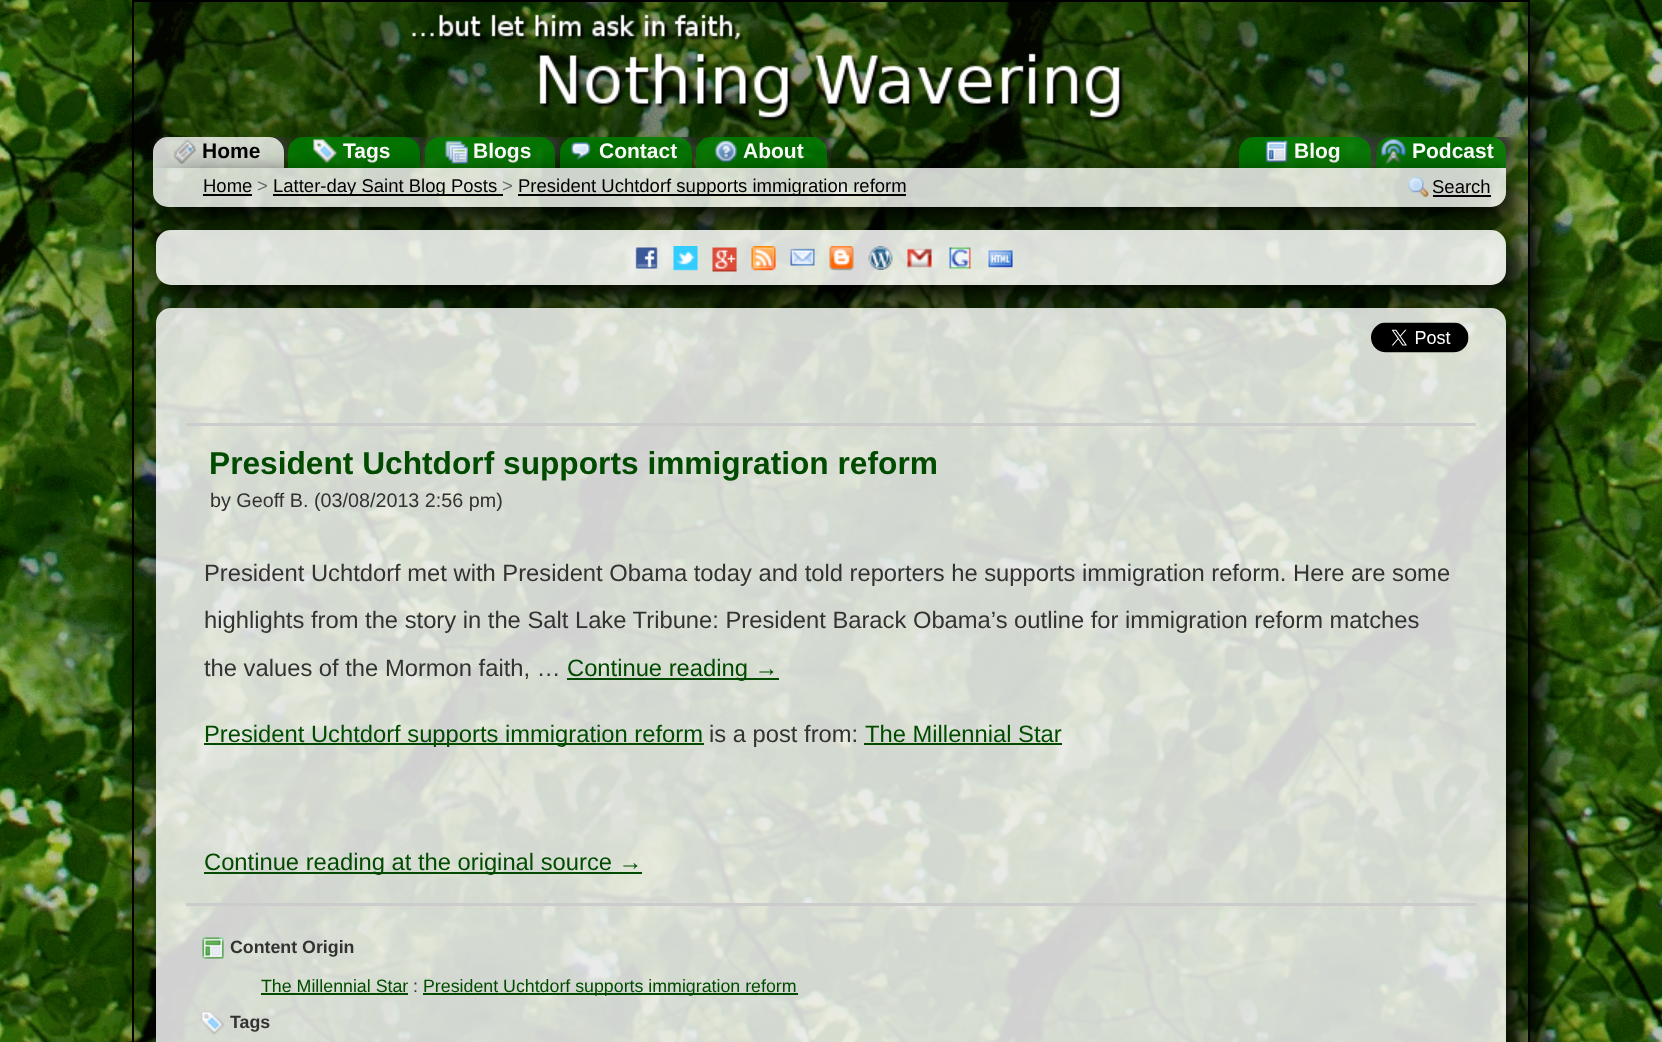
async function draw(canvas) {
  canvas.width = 1662;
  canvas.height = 1042;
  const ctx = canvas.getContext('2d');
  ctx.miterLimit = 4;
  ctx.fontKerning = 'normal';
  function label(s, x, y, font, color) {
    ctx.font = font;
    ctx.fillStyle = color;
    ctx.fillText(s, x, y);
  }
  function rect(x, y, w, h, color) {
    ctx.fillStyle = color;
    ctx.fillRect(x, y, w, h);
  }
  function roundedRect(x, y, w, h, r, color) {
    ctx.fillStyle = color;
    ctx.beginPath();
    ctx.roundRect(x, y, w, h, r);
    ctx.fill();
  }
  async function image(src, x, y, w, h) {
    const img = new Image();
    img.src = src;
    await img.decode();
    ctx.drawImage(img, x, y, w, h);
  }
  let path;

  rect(0, 0, 1662, 1042, '#fff');
  await image('assets/img1.png', 0, 0, 1662, 1042);
  ctx.save();
  path = new Path2D('M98 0H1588V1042H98ZM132 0H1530V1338H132Z');
  ctx.clip(path, 'evenodd');
  ctx.fillStyle = '#000';
  ctx.filter = 'blur(15px)';
  ctx.beginPath();
  ctx.rect(144, 12, 1398, 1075);
  ctx.fill();
  ctx.filter = 'none';
  ctx.restore();
  ctx.fillStyle = '#00000040';
  ctx.beginPath();
  ctx.rect(133, 1, 1396, 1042);
  ctx.fill();
  ctx.strokeStyle = '#000';
  ctx.lineWidth = 2;
  ctx.stroke();
  await image('assets/img2.png', 412, 14, 712, 108);
  ctx.save();
  ctx.beginPath();
  ctx.rect(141, 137, 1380, 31);
  ctx.clip();
  path = new Path2D('M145 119H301V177H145ZM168 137H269C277.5 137 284 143.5 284 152V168H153V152C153 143.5 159.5 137 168 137Z');
  ctx.clip(path, 'evenodd');
  ctx.fillStyle = '#333';
  ctx.filter = 'blur(4px)';
  ctx.beginPath();
  ctx.roundRect(158, 132, 130, 32, 15);
  ctx.fill();
  ctx.filter = 'none';
  ctx.restore();
  ctx.fillStyle = '#ffffffcc';
  ctx.beginPath();
  ctx.roundRect(153, 137, 131, 31, [15, 15, 0, 0]);
  ctx.fill();
  await image('assets/img3.png', 173, 139, 24, 25);
  label('Home', 202, 158, 'bold 21px Liberation Sans', '#000');
  ctx.save();
  ctx.beginPath();
  ctx.rect(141, 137, 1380, 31);
  ctx.clip();
  path = new Path2D('M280 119H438V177H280ZM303 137H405C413.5 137 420 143.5 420 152V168H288V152C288 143.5 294.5 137 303 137Z');
  ctx.clip(path, 'evenodd');
  ctx.fillStyle = '#333';
  ctx.filter = 'blur(4px)';
  ctx.beginPath();
  ctx.roundRect(293, 132, 132, 32, 15);
  ctx.fill();
  ctx.filter = 'none';
  ctx.restore();
  ctx.fillStyle = '#007e00d9';
  ctx.beginPath();
  ctx.roundRect(288, 137, 132, 31, [15, 15, 0, 0]);
  ctx.fill();
  await image('assets/img4.png', 313, 139, 25, 25);
  label('Tags', 343, 158, 'bold 21px Liberation Sans', '#fff');
  ctx.save();
  ctx.beginPath();
  ctx.rect(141, 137, 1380, 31);
  ctx.clip();
  path = new Path2D('M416 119H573V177H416ZM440 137H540C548.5 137 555 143.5 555 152V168H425V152C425 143.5 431.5 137 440 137Z');
  ctx.clip(path, 'evenodd');
  ctx.fillStyle = '#333';
  ctx.filter = 'blur(4px)';
  ctx.beginPath();
  ctx.roundRect(429, 132, 131, 32, 15);
  ctx.fill();
  ctx.filter = 'none';
  ctx.restore();
  ctx.fillStyle = '#007e00d9';
  ctx.beginPath();
  ctx.roundRect(425, 137, 130, 31, [15, 15, 0, 0]);
  ctx.fill();
  await image('assets/img5.png', 445, 140, 23, 24);
  label('Blogs', 473, 158, 'bold 21px Liberation Sans', '#fff');
  ctx.save();
  ctx.beginPath();
  ctx.rect(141, 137, 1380, 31);
  ctx.clip();
  path = new Path2D('M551 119H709V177H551ZM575 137H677C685.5 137 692 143.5 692 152V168H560V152C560 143.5 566.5 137 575 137Z');
  ctx.clip(path, 'evenodd');
  ctx.fillStyle = '#333';
  ctx.filter = 'blur(4px)';
  ctx.beginPath();
  ctx.roundRect(564, 132, 132, 32, 15);
  ctx.fill();
  ctx.filter = 'none';
  ctx.restore();
  ctx.fillStyle = '#007e00d9';
  ctx.beginPath();
  ctx.roundRect(560, 137, 132, 31, [15, 15, 0, 0]);
  ctx.fill();
  await image('assets/img6.png', 570, 142, 22, 18);
  label('Contact', 599, 158, 'bold 21px Liberation Sans', '#fff');
  ctx.save();
  ctx.beginPath();
  ctx.rect(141, 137, 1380, 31);
  ctx.clip();
  path = new Path2D('M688 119H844V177H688ZM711 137H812C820.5 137 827 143.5 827 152V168H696V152C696 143.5 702.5 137 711 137Z');
  ctx.clip(path, 'evenodd');
  ctx.fillStyle = '#333';
  ctx.filter = 'blur(4px)';
  ctx.beginPath();
  ctx.roundRect(701, 132, 130, 32, 15);
  ctx.fill();
  ctx.filter = 'none';
  ctx.restore();
  ctx.fillStyle = '#007e00d9';
  ctx.beginPath();
  ctx.roundRect(696, 137, 131, 31, [15, 15, 0, 0]);
  ctx.fill();
  await image('assets/img7.png', 715, 140, 22, 23);
  label('About', 743, 158, 'bold 21px Liberation Sans', '#fff');
  ctx.save();
  ctx.beginPath();
  ctx.rect(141, 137, 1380, 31);
  ctx.clip();
  path = new Path2D('M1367 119H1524V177H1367ZM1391 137H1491C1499.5 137 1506 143.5 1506 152V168H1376V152C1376 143.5 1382.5 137 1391 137Z');
  ctx.clip(path, 'evenodd');
  ctx.fillStyle = '#333';
  ctx.filter = 'blur(4px)';
  ctx.beginPath();
  ctx.roundRect(1380, 132, 131, 32, 15);
  ctx.fill();
  ctx.filter = 'none';
  ctx.restore();
  ctx.fillStyle = '#007e00d9';
  ctx.beginPath();
  ctx.roundRect(1376, 137, 130, 31, [15, 15, 0, 0]);
  ctx.fill();
  await image('assets/img9.png', 1381, 139, 25, 25);
  ctx.save();
  ctx.beginPath();
  ctx.rect(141, 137, 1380, 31);
  ctx.clip();
  path = new Path2D('M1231 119H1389V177H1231ZM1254 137H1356C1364.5 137 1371 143.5 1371 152V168H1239V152C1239 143.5 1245.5 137 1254 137Z');
  ctx.clip(path, 'evenodd');
  ctx.fillStyle = '#333';
  ctx.filter = 'blur(4px)';
  ctx.beginPath();
  ctx.roundRect(1244, 132, 132, 32, 15);
  ctx.fill();
  ctx.filter = 'none';
  ctx.restore();
  ctx.beginPath();
  ctx.roundRect(1239, 137, 132, 31, [15, 15, 0, 0]);
  ctx.fill();
  await image('assets/img8.png', 1265, 140, 23, 23);
  label('Blog', 1294, 158, 'bold 21px Liberation Sans', '#fff');
  label('Podcast', 1412, 158, 'bold 21px Liberation Sans', '#fff');
  ctx.save();
  path = new Path2D('M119 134H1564V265H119ZM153 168H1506V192C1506 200.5 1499.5 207 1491 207H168C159.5 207 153 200.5 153 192Z');
  ctx.clip(path, 'evenodd');
  ctx.fillStyle = '#000';
  ctx.filter = 'blur(15px)';
  ctx.beginPath();
  ctx.roundRect(165, 180, 1353, 39, 15);
  ctx.fill();
  ctx.filter = 'none';
  ctx.restore();
  ctx.fillStyle = '#ffffffcc';
  ctx.beginPath();
  ctx.roundRect(153, 168, 1353, 39, [0, 0, 15, 15]);
  ctx.fill();
  label('Home', 203, 192, '18.5px Liberation Sans', '#000');
  rect(203, 194, 49, 2, '#000');
  label('>', 257, 192, '18.5px Liberation Sans', '#666');
  rect(273, 194, 230, 2, '#000');
  label('Latter-day Saint Blog Posts', 273, 192, '18.5px Liberation Sans', '#000');
  label('>', 502, 192, '18.5px Liberation Sans', '#666');
  rect(518, 194, 388, 2, '#000');
  label('President Uchtdorf supports immigration reform', 518, 192, '18.5px Liberation Sans', '#000');
  await image('assets/img10.png', 1408, 176, 21, 22);
  label('Search', 1432, 193, '18.5px Liberation Sans', '#000');
  rect(1433, 195, 58, 2, '#000');
  ctx.save();
  path = new Path2D('M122 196H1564V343H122ZM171 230H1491C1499.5 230 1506 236.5 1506 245V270C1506 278.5 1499.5 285 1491 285H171C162.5 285 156 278.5 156 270V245C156 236.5 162.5 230 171 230Z');
  ctx.clip(path, 'evenodd');
  ctx.filter = 'blur(15px)';
  ctx.beginPath();
  ctx.roundRect(168, 242, 1350, 55, 15);
  ctx.fill();
  ctx.filter = 'none';
  ctx.restore();
  roundedRect(156, 230, 1350, 55, 15, '#ffffffd9');
  await image('assets/img11.png', 635, 247, 23, 22);
  await image('assets/img12.png', 673, 246, 25, 25);
  await image('assets/img13.png', 712, 247, 25, 25);
  await image('assets/img14.png', 751, 246, 25, 25);
  await image('assets/img15.png', 790, 248, 25, 18);
  await image('assets/img16.png', 829, 246, 25, 25);
  await image('assets/img17.png', 868, 246, 25, 24);
  await image('assets/img18.png', 907, 248, 25, 20);
  await image('assets/img19.png', 949, 247, 22, 22);
  await image('assets/img20.png', 988, 250, 25, 18);
  ctx.save();
  path = new Path2D('M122 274H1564V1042H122ZM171 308H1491C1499.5 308 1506 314.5 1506 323V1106C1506 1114.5 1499.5 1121 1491 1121H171C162.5 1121 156 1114.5 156 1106V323C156 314.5 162.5 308 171 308Z');
  ctx.clip(path, 'evenodd');
  ctx.fillStyle = '#000';
  ctx.filter = 'blur(15px)';
  ctx.beginPath();
  ctx.roundRect(168, 320, 1350, 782, 15);
  ctx.fill();
  ctx.filter = 'none';
  ctx.restore();
  roundedRect(156, 308, 1350, 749, 15, '#ffffffd1');
  rect(186, 423, 1290, 3, '#ccc');
  await image('assets/img21.png', 1371, 322, 98, 31);
  label('President Uchtdorf supports immigration reform', 209, 474, 'bold 31.7px Liberation Sans', '#004b00');
  label('by Geoff B. (03/08/2013 2:56 pm)', 210, 507, '19.75px Liberation Sans', '#323232');
  label('President Uchtdorf met with President Obama today and told reporters he supports immigration reform. Here are some', 204, 581, '23.75px Liberation Sans', '#323232');
  label('highlights from the story in the Salt Lake Tribune: President Barack Obama’s outline for immigration reform matches', 204, 628, '23.75px Liberation Sans', '#323232');
  label('the values of the Mormon faith, …', 204, 676, '23.75px Liberation Sans', '#323232');
  rect(567, 678, 212, 2, '#004b00');
  label('Continue reading →', 567, 676, '23.75px Liberation Sans', '#004b00');
  rect(204, 743, 500, 2, '#004b00');
  label('President Uchtdorf supports immigration reform', 204, 742, '23.75px Liberation Sans', '#004b00');
  label('is a post from:', 709, 742, '23.75px Liberation Sans', '#323232');
  label('The Millennial Star', 865, 742, '23.75px Liberation Sans', '#004b00');
  rect(864, 743, 198, 2, '#004b00');
  rect(204, 872, 438, 2, '#004b00');
  label('Continue reading at the original source →', 204, 870, '23.75px Liberation Sans', '#004b00');
  rect(186, 903, 1290, 3, '#ccc');
  await image('assets/img22.png', 202, 937, 22, 22);
  label('Content Origin', 230, 953, 'bold 17.8px Liberation Sans', '#323232');
  label('The Millennial Star', 261, 992, '17.8px Liberation Sans', '#004b00');
  rect(261, 993, 147, 2, '#004b00');
  label(':', 413, 992, '17.8px Liberation Sans', '#323232');
  rect(423, 993, 375, 2, '#004b00');
  label('President Uchtdorf supports immigration reform', 423, 992, '17.8px Liberation Sans', '#004b00');
  await image('assets/img23.png', 201, 1011, 24, 24);
  label('Tags', 230, 1028, 'bold 17.8px Liberation Sans', '#323232');
}

draw(document.querySelector('canvas'));
